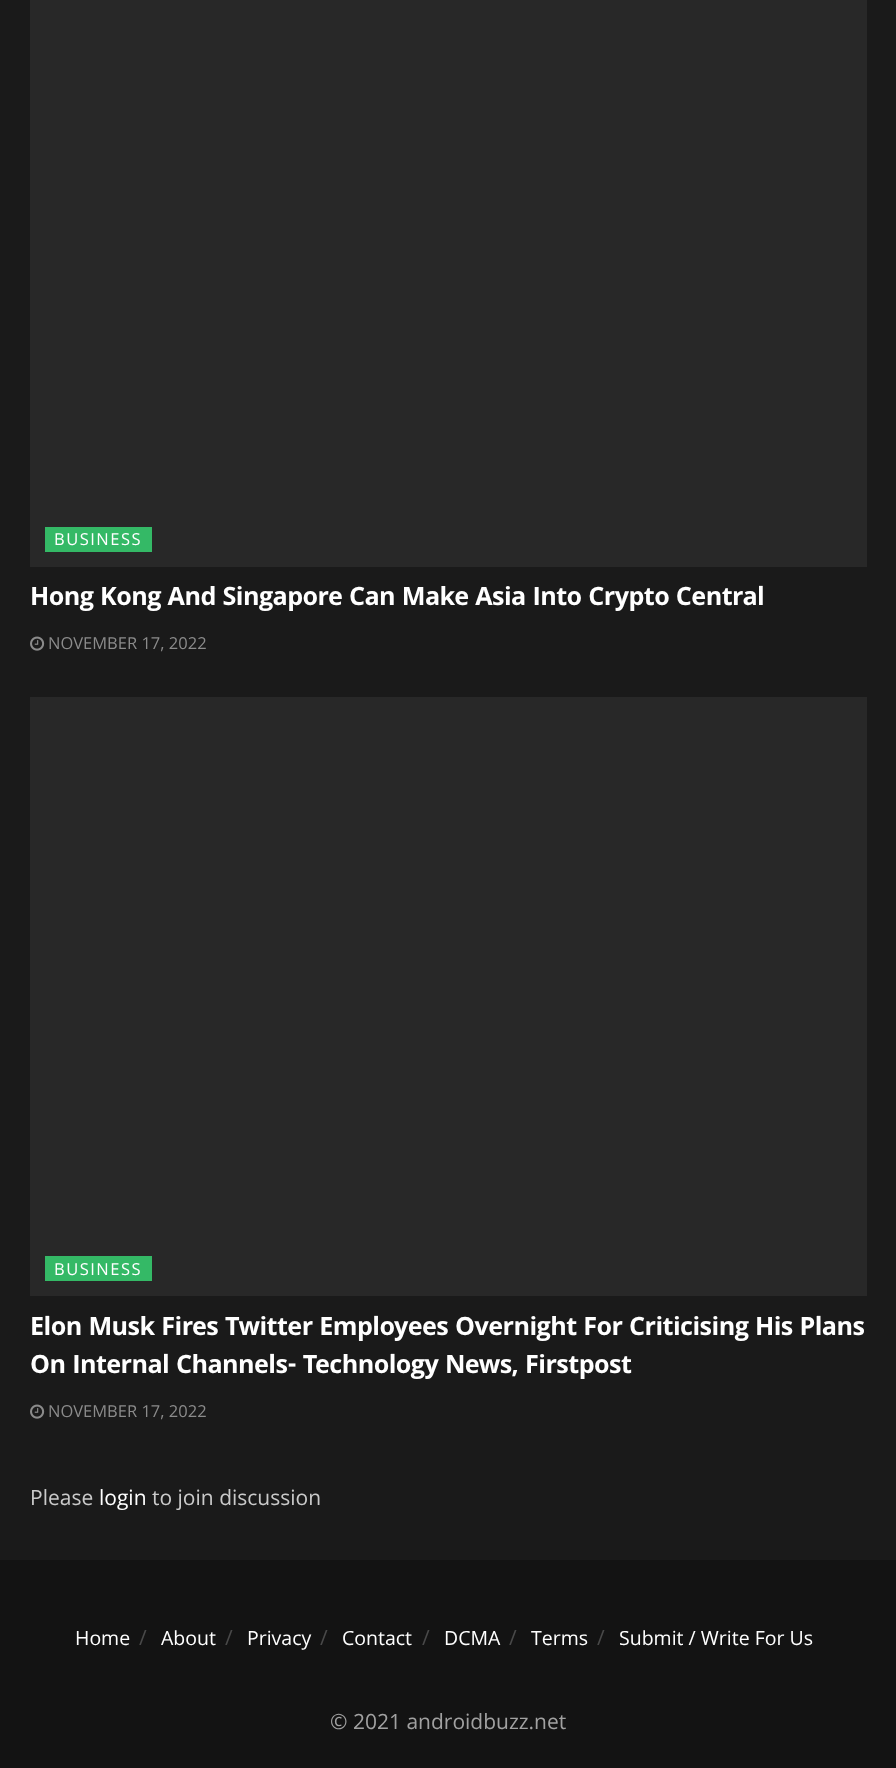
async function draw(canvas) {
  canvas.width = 896;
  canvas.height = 1768;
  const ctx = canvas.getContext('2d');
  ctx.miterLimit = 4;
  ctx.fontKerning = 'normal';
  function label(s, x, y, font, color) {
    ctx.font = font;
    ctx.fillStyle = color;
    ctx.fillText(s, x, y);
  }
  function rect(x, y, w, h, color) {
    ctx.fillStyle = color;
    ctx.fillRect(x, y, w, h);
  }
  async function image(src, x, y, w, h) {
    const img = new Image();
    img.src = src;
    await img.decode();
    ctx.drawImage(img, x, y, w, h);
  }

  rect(0, 0, 896, 1768, '#1a1a1a');
  rect(30, 0, 837, 567, '#282828');
  rect(45, 527, 107, 25, '#34b966');
  ctx.letterSpacing = '1.5px';
  label('BUSINESS', 54, 545, '16.5px Open Sans', '#fff');
  ctx.letterSpacing = '-0.55px';
  label('Hong Kong And Singapore Can Make Asia Into Crypto Central', 30, 605, 'bold 27px Khula', '#fff');
  await image('assets/img1.png', 30, 636, 15, 15);
  ctx.letterSpacing = '0px';
  label('NOVEMBER 17, 2022', 48, 649, '16.5px Open Sans', '#8b8b8b');
  rect(30, 697, 837, 599, '#282828');
  rect(45, 1256, 107, 25, '#34b966');
  ctx.letterSpacing = '1.5px';
  label('BUSINESS', 54, 1275, '16.5px Open Sans', '#fff');
  ctx.letterSpacing = '-0.55px';
  label('Elon Musk Fires Twitter Employees Overnight For Criticising His Plans', 30, 1335, 'bold 27px Khula', '#fff');
  label('On Internal Channels- Technology News, Firstpost', 30, 1373, 'bold 27px Khula', '#fff');
  await image('assets/img1.png', 30, 1404, 15, 15);
  ctx.letterSpacing = '0px';
  label('NOVEMBER 17, 2022', 48, 1417, '16.5px Open Sans', '#8b8b8b');
  label('Please', 30, 1505, '21px Open Sans', '#cacaca');
  label('login', 99, 1505, '21px Open Sans', '#fff');
  label('to join discussion', 152, 1505, '21px Open Sans', '#cacaca');
  rect(0, 1560, 896, 208, '#131313');
  label('Home', 75, 1645, '19.5px Open Sans', '#fff');
  label('/', 139, 1645, '21px Open Sans', '#494949');
  label('About', 161, 1645, '19.5px Open Sans', '#fff');
  label('/', 225, 1645, '21px Open Sans', '#494949');
  label('Privacy', 247, 1645, '19.5px Open Sans', '#fff');
  label('/', 320, 1645, '21px Open Sans', '#494949');
  label('Contact', 342, 1645, '19.5px Open Sans', '#fff');
  label('/', 422, 1645, '21px Open Sans', '#494949');
  label('DCMA', 444, 1645, '19.5px Open Sans', '#fff');
  label('/', 509, 1645, '21px Open Sans', '#494949');
  label('Terms', 531, 1645, '19.5px Open Sans', '#fff');
  label('/', 597, 1645, '21px Open Sans', '#494949');
  label('Submit / Write For Us', 619, 1645, '19.5px Open Sans', '#fff');
  label('© 2021 androidbuzz.net', 330, 1729, '21px Open Sans', '#a1a1a1');
}

draw(document.querySelector('canvas'));
